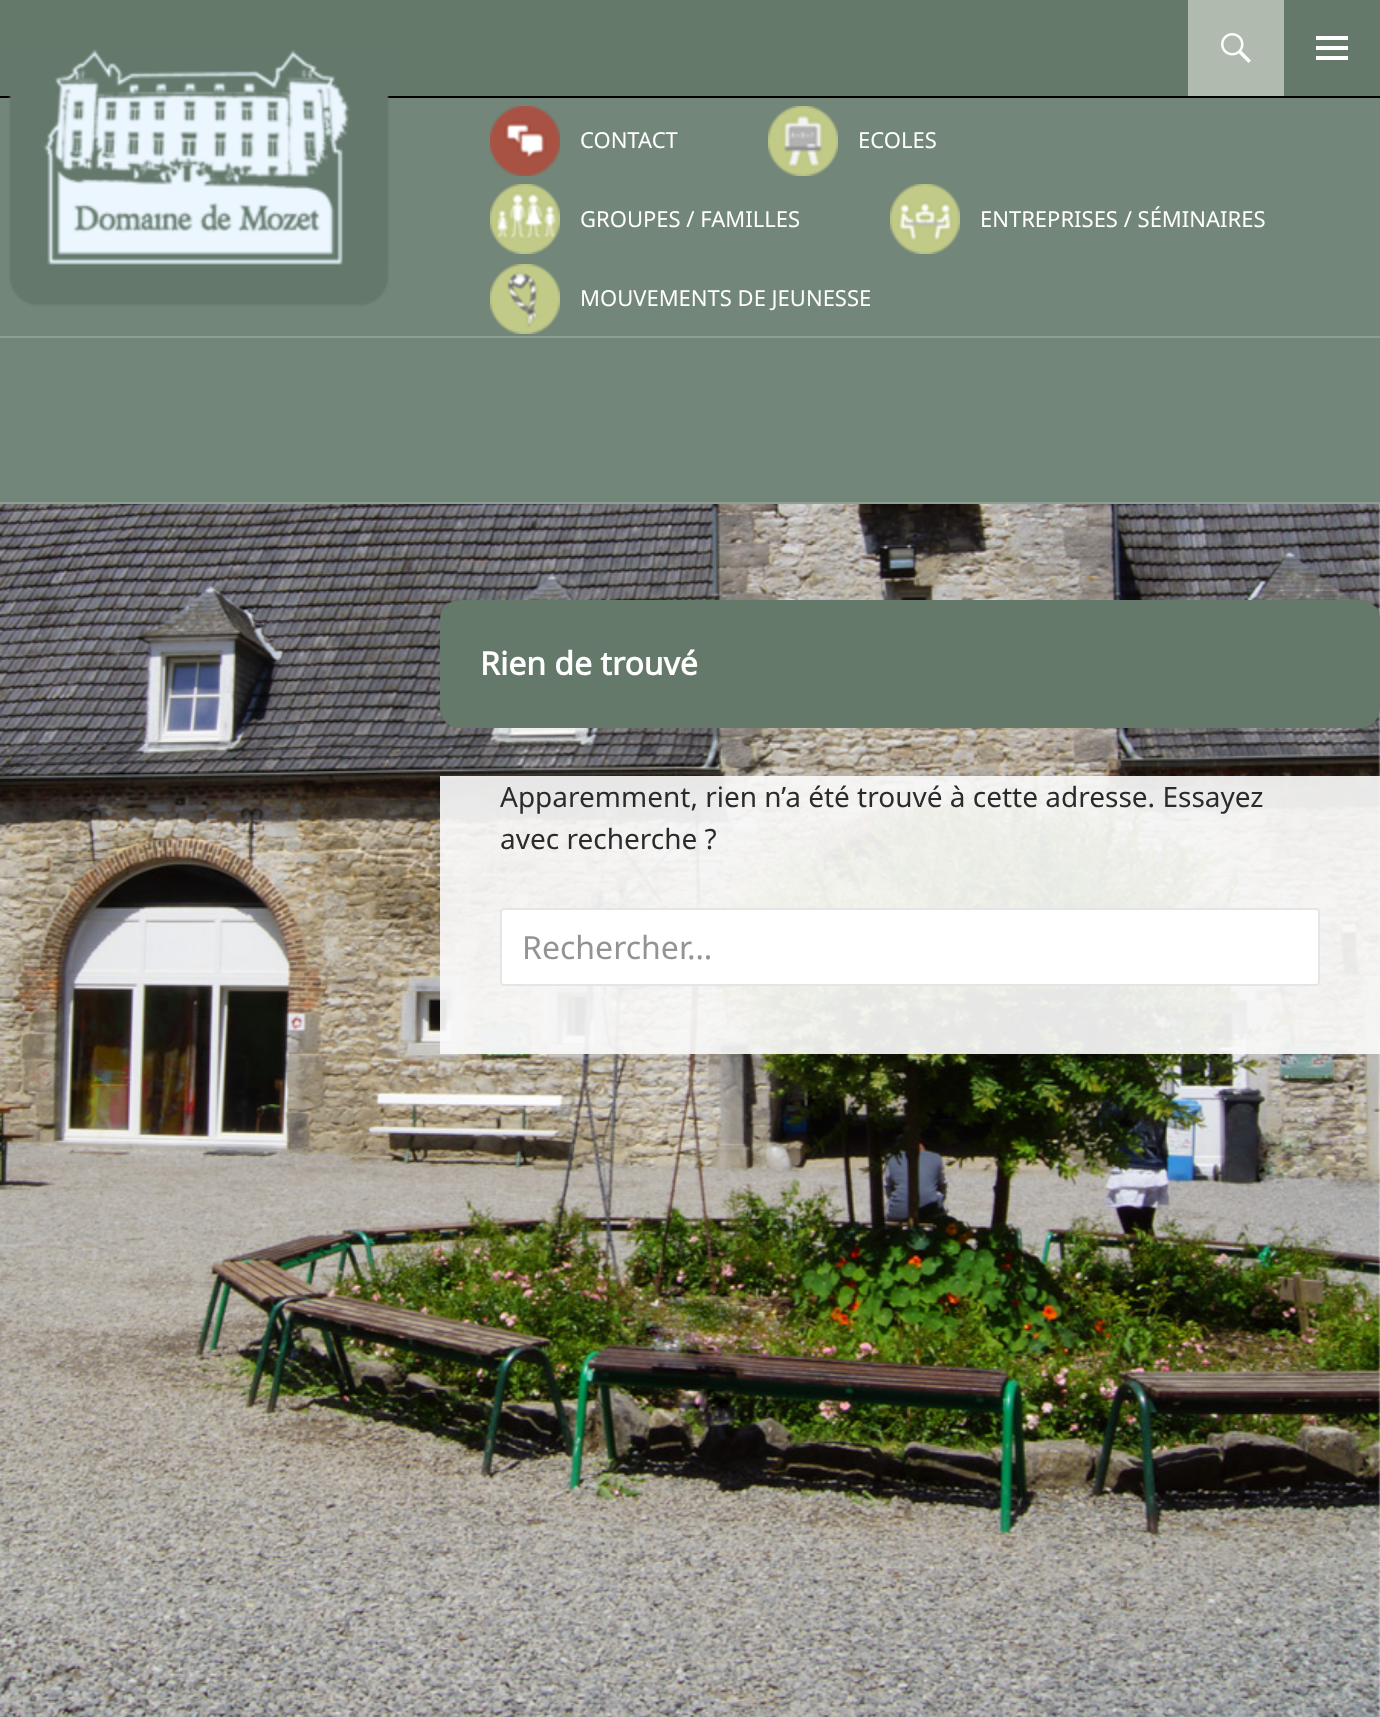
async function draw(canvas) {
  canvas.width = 1380;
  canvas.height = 1717;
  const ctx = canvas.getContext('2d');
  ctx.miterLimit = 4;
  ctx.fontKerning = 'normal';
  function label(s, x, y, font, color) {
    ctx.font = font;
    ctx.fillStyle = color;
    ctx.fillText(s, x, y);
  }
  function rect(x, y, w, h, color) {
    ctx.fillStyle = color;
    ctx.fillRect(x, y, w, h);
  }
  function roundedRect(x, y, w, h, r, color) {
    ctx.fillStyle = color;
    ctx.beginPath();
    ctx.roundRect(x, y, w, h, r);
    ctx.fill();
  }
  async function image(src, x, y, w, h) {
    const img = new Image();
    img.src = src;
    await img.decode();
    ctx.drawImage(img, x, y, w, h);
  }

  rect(0, 0, 1380, 1717, '#fff');
  await image('assets/img1.png', 0, 504, 1380, 1213);
  rect(0, 0, 1380, 96, '#64796a');
  rect(1188, 0, 96, 96, '#b0baaf');
  await image('assets/img2.png', 1221, 33, 30, 30);
  await image('assets/img3.png', 1316, 36, 32, 24);
  rect(0, 98, 1380, 404, '#72867a');
  rect(0, 96, 1380, 2, '#000');
  await image('assets/img4.png', 8, 49, 382, 257);
  rect(0, 502, 1380, 2, '#8e9e95');
  rect(0, 336, 1380, 2, '#8e9e95');
  await image('assets/img5.png', 490, 106, 70, 70);
  label('CONTACT', 580, 148, '22px Noto Sans', '#fff');
  await image('assets/img6.png', 768, 106, 70, 70);
  label('ECOLES', 858, 148, '22px Noto Sans', '#fff');
  await image('assets/img7.png', 490, 184, 70, 70);
  label('GROUPES / FAMILLES', 580, 227, '22px Noto Sans', '#fff');
  await image('assets/img8.png', 890, 184, 70, 70);
  label('ENTREPRISES / SÉMINAIRES', 980, 227, '22px Noto Sans', '#fff');
  await image('assets/img9.png', 490, 264, 70, 70);
  label('MOUVEMENTS DE JEUNESSE', 580, 306, '22px Noto Sans', '#fff');
  roundedRect(440, 600, 940, 128, 20, '#64796a');
  label('Rien de trouvé', 480, 675, 'bold 32px Noto Sans', '#fff');
  rect(440, 776, 940, 278, '#fafafaeb');
  label('Apparemment, rien n’a été trouvé à cette adresse. Essayez', 500, 807, '28px Noto Sans', '#2b2b2b');
  label('avec recherche ?', 500, 849, '28px Noto Sans', '#2b2b2b');
  roundedRect(500, 908, 820, 78, 4, '#fff');
  ctx.beginPath();
  ctx.roundRect(501, 909, 818, 76, 3);
  ctx.strokeStyle = '#0000001a';
  ctx.lineWidth = 2;
  ctx.stroke();
  label('Rechercher…', 522, 959, '32px Noto Sans', '#939393');
}

draw(document.querySelector('canvas'));
